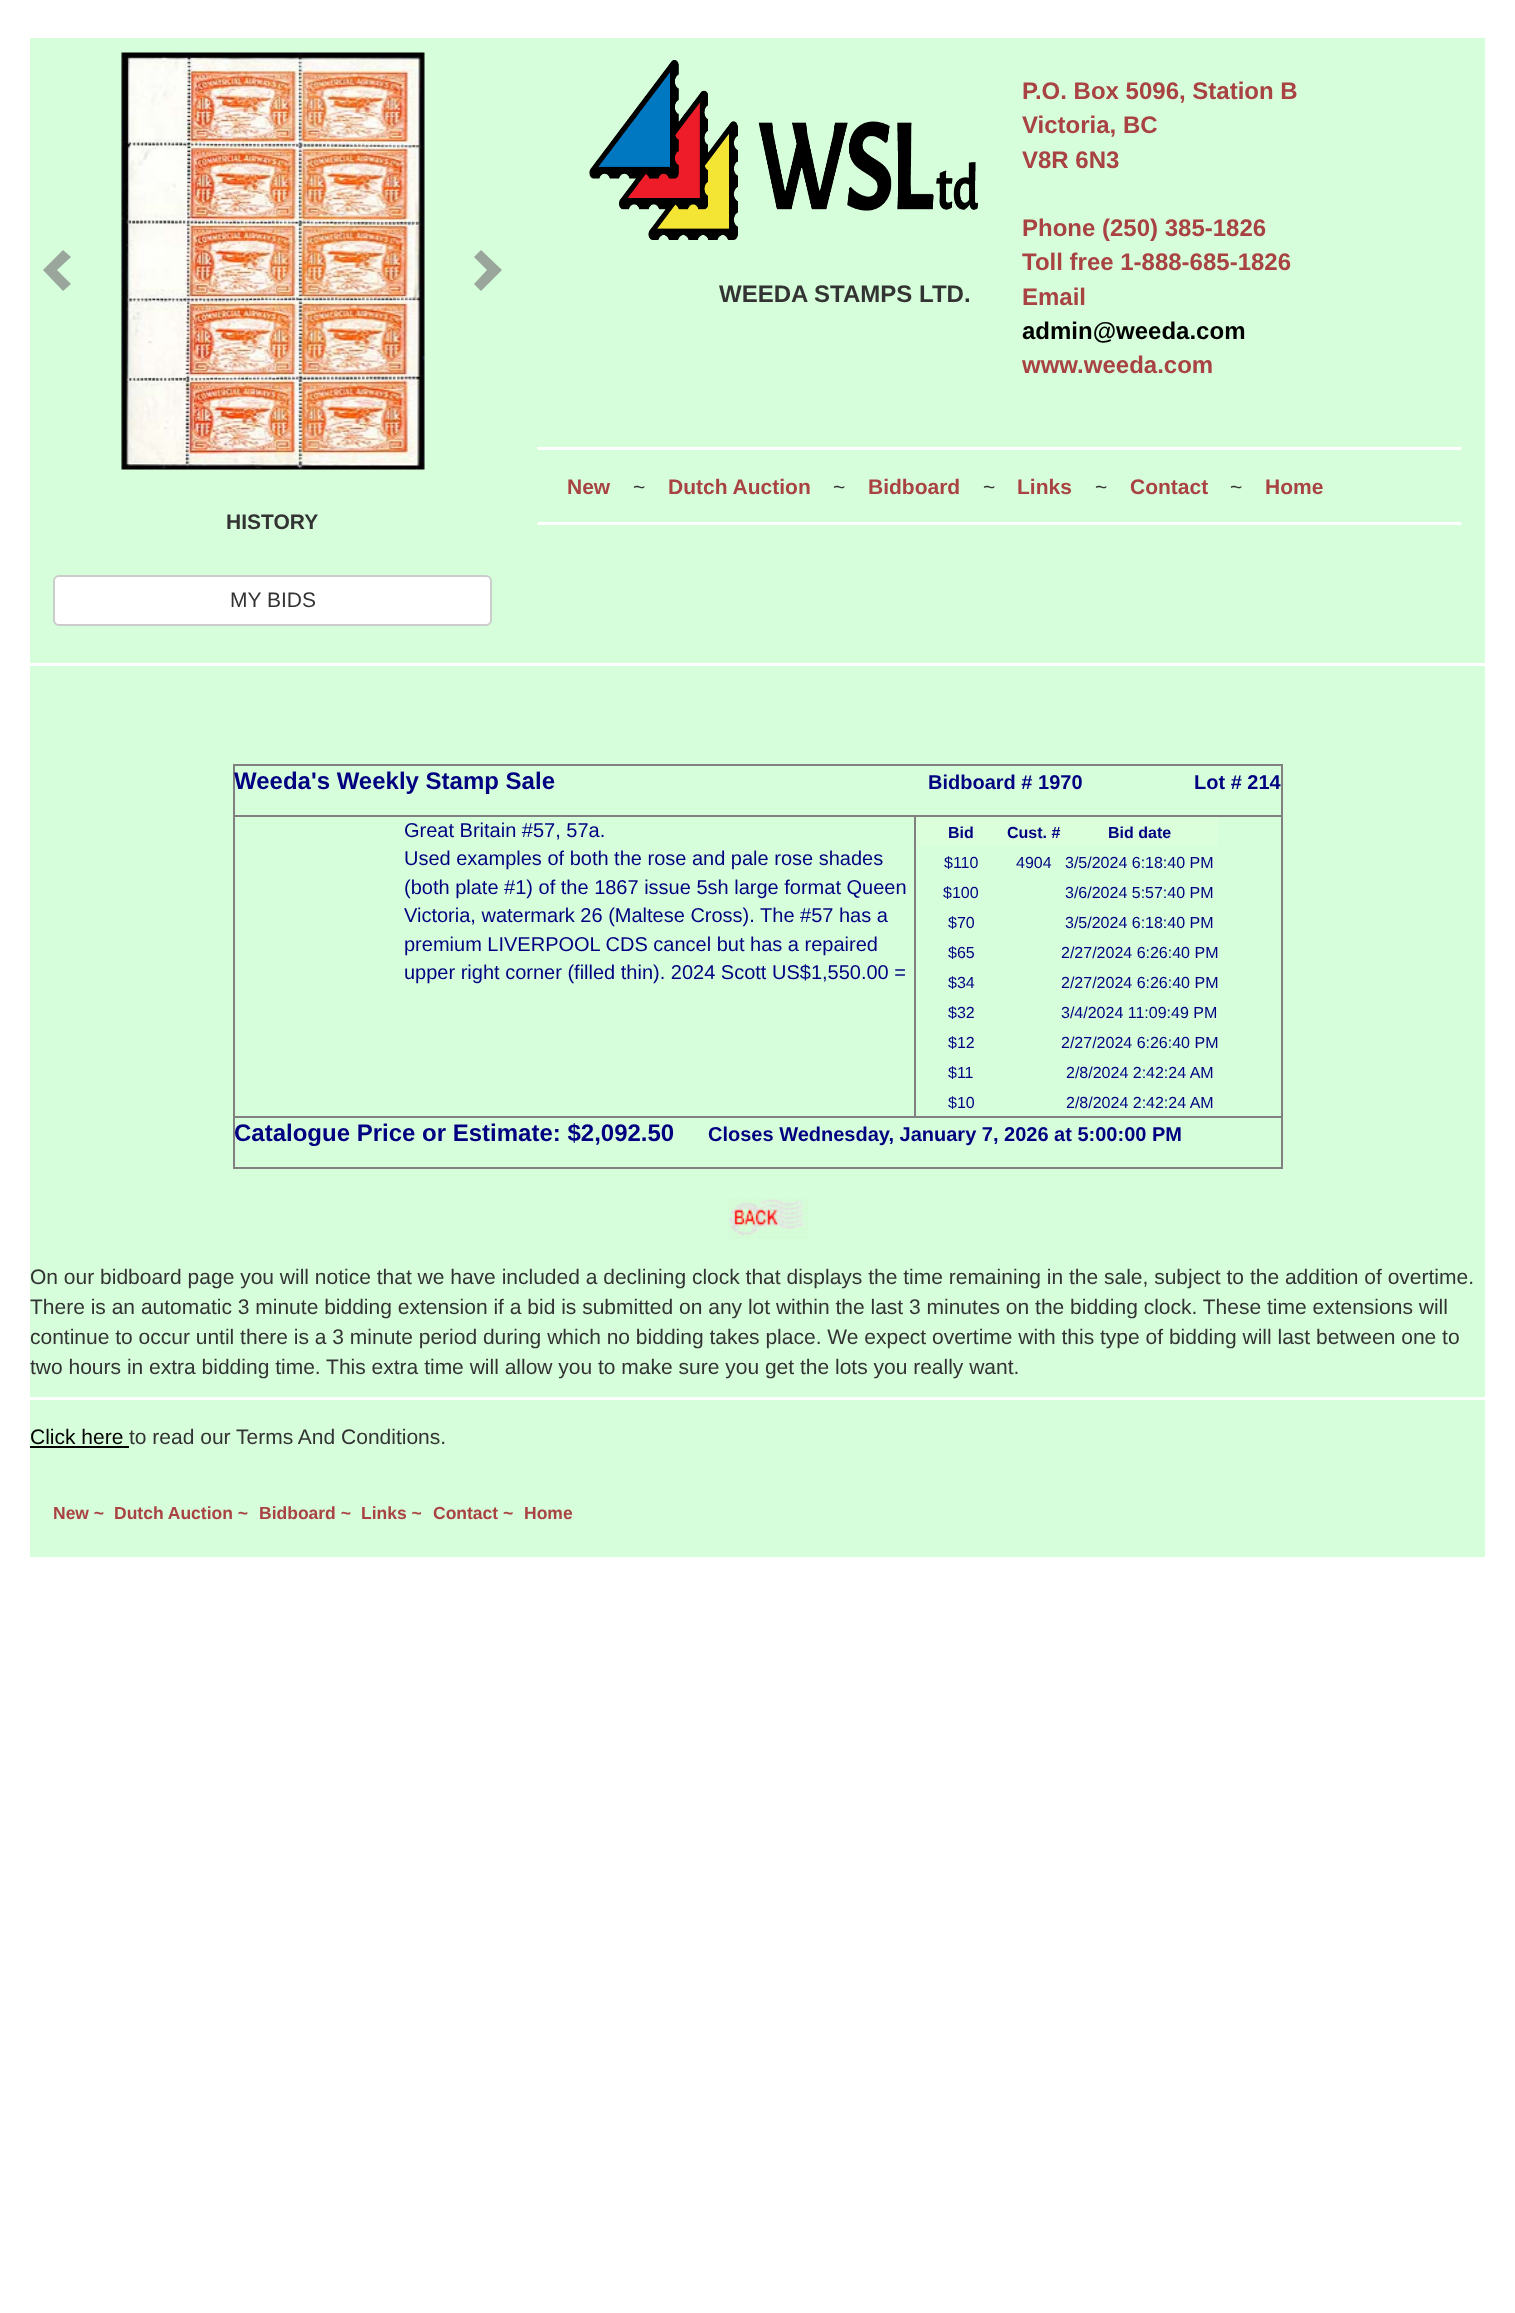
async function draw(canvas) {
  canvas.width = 1515;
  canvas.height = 2313;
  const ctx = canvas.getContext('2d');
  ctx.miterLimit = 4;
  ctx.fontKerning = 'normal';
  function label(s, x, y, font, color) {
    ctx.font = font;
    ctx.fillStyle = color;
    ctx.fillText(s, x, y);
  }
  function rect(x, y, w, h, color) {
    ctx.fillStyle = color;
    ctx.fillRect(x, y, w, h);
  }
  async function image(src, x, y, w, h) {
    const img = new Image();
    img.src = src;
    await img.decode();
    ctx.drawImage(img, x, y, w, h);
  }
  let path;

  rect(0, 0, 1515, 2313, '#fff');
  rect(30, 38, 1455, 1519, '#d6fedb');
  await image('assets/img1.png', 589, 60, 389, 180);
  label('WEEDA STAMPS LTD.', 719, 302, 'bold 24px Liberation Sans', '#333');
  label('P.O. Box 5096, Station B', 1022, 99, 'bold 24px Liberation Sans', '#a94242');
  label('Victoria, BC', 1022, 133, 'bold 24px Liberation Sans', '#a94242');
  label('V8R 6N3', 1022, 168, 'bold 24px Liberation Sans', '#a94242');
  label('Phone (250) 385-1826', 1022, 236, 'bold 24px Liberation Sans', '#a94242');
  label('Toll free 1-888-685-1826', 1022, 270, 'bold 24px Liberation Sans', '#a94242');
  label('Email', 1022, 305, 'bold 24px Liberation Sans', '#a94242');
  label('admin@weeda.com', 1022, 339, 'bold 24px Liberation Sans', '#000');
  label('www.weeda.com', 1022, 373, 'bold 24px Liberation Sans', '#a94242');
  ctx.fillStyle = '#fff';
  path = new Path2D('M537 447H1462L1461 450H538Z');
  ctx.fill(path);
  path = new Path2D('M1462 525H537L538 522H1461Z');
  ctx.fill(path);
  label('New', 567, 494, 'bold 21px Liberation Sans', '#a94242');
  label('~', 633, 494, '21px Liberation Sans', '#333');
  label('Dutch Auction', 668, 494, 'bold 21px Liberation Sans', '#a94242');
  label('~', 833, 494, '21px Liberation Sans', '#333');
  label('Bidboard', 868, 494, 'bold 21px Liberation Sans', '#a94242');
  label('~', 983, 494, '21px Liberation Sans', '#333');
  label('Links', 1017, 494, 'bold 21px Liberation Sans', '#a94242');
  label('~', 1095, 494, '21px Liberation Sans', '#333');
  label('Contact', 1130, 494, 'bold 21px Liberation Sans', '#a94242');
  label('~', 1230, 494, '21px Liberation Sans', '#333');
  label('Home', 1265, 494, 'bold 21px Liberation Sans', '#a94242');
  ctx.fillStyle = '#9aa69b';
  path = new Path2D('M71 257L57 270L71 284L63 291L43 270L63 250Z');
  ctx.fill(path);
  await image('assets/img2.png', 121, 52, 304, 418);
  path = new Path2D('M502 270L481 291L474 284L487 270L474 257L481 250Z');
  ctx.fill(path);
  label('HISTORY', 226, 529, 'bold 21px Liberation Sans', '#333');
  ctx.fillStyle = '#fff';
  ctx.beginPath();
  ctx.roundRect(54, 576, 437, 49, 5);
  ctx.fill();
  ctx.strokeStyle = '#ccc';
  ctx.lineWidth = 2;
  ctx.stroke();
  label('MY BIDS', 230, 607, '21px Liberation Sans', '#333');
  rect(30, 663, 1455, 3, '#fff');
  rect(233, 764, 1050, 2, '#808080');
  rect(1281, 764, 2, 405, '#808080');
  rect(233, 1167, 1050, 2, '#808080');
  rect(233, 764, 2, 405, '#808080');
  label('Weeda\'s Weekly Stamp Sale', 234, 789, 'bold 24px Liberation Sans', '#000080');
  label('Bidboard # 1970', 928, 789, 'bold 20px Liberation Sans', '#000080');
  label('Lot # 214', 1194, 789, 'bold 20px Liberation Sans', '#000080');
  rect(914, 815, 369, 2, '#808080');
  rect(233, 1116, 1050, 2, '#808080');
  rect(914, 815, 2, 303, '#808080');
  rect(233, 815, 682, 2, '#808080');
  label('Great Britain #57, 57a.', 404, 837, '20px Liberation Sans', '#000080');
  label('Used examples of both the rose and pale rose shades', 404, 865, '20px Liberation Sans', '#000080');
  label('(both plate #1) of the 1867 issue 5sh large format Queen', 404, 894, '20px Liberation Sans', '#000080');
  label('Victoria, watermark 26 (Maltese Cross). The #57 has a', 404, 922, '20px Liberation Sans', '#000080');
  label('premium LIVERPOOL CDS cancel but has a repaired', 404, 951, '20px Liberation Sans', '#000080');
  label('upper right corner (filled thin). 2024 Scott US$1,550.00 =', 404, 979, '20px Liberation Sans', '#000080');
  rect(916, 817, 302, 29, '#dbffdb');
  label('Bid', 948, 838, 'bold 16px Liberation Sans', '#000080');
  label('Cust. #', 1007, 838, 'bold 16px Liberation Sans', '#000080');
  label('Bid date', 1108, 838, 'bold 16px Liberation Sans', '#000080');
  label('$110', 944, 868, '16px Liberation Sans', '#000080');
  label('4904', 1016, 868, '16px Liberation Sans', '#000080');
  label('3/5/2024 6:18:40 PM', 1065, 868, '16px Liberation Sans', '#000080');
  label('$100', 943, 898, '16px Liberation Sans', '#000080');
  label('3/6/2024 5:57:40 PM', 1065, 898, '16px Liberation Sans', '#000080');
  label('$70', 948, 928, '16px Liberation Sans', '#000080');
  label('3/5/2024 6:18:40 PM', 1065, 928, '16px Liberation Sans', '#000080');
  label('$65', 948, 958, '16px Liberation Sans', '#000080');
  label('2/27/2024 6:26:40 PM', 1061, 958, '16px Liberation Sans', '#000080');
  label('$34', 948, 988, '16px Liberation Sans', '#000080');
  label('2/27/2024 6:26:40 PM', 1061, 988, '16px Liberation Sans', '#000080');
  label('$32', 948, 1018, '16px Liberation Sans', '#000080');
  label('3/4/2024 11:09:49 PM', 1061, 1018, '16px Liberation Sans', '#000080');
  label('$12', 948, 1048, '16px Liberation Sans', '#000080');
  label('2/27/2024 6:26:40 PM', 1061, 1048, '16px Liberation Sans', '#000080');
  label('$11', 948, 1078, '16px Liberation Sans', '#000080');
  label('2/8/2024 2:42:24 AM', 1066, 1078, '16px Liberation Sans', '#000080');
  label('$10', 948, 1108, '16px Liberation Sans', '#000080');
  label('2/8/2024 2:42:24 AM', 1066, 1108, '16px Liberation Sans', '#000080');
  label('Catalogue Price or Estimate: $2,092.50', 234, 1141, 'bold 24px Liberation Sans', '#000080');
  label('Closes Wednesday, January 7, 2026 at 5:00:00 PM', 708, 1141, 'bold 20px Liberation Sans', '#000080');
  await image('assets/img3.png', 728, 1198, 81, 41);
  label('On our bidboard page you will notice that we have included a declining clock that displays the time remaining in the sale, subject to the addition of overtime.', 30, 1284, '21px Liberation Sans', '#333');
  label('There is an automatic 3 minute bidding extension if a bid is submitted on any lot within the last 3 minutes on the bidding clock. These time extensions will', 30, 1314, '21px Liberation Sans', '#333');
  label('continue to occur until there is a 3 minute period during which no bidding takes place. We expect overtime with this type of bidding will last between one to', 30, 1344, '21px Liberation Sans', '#333');
  label('two hours in extra bidding time. This extra time will allow you to make sure you get the lots you really want.', 30, 1374, '21px Liberation Sans', '#333');
  rect(30, 1397, 1455, 3, '#fff');
  label('Click here', 30, 1444, '21px Liberation Sans', '#000');
  rect(30, 1446, 99, 2, '#000');
  label('to read our Terms And Conditions.', 129, 1444, '21px Liberation Sans', '#333');
  label('New ~', 53, 1519, 'bold 17.5px Liberation Sans', '#a94242');
  label('Dutch Auction ~', 114, 1519, 'bold 17.5px Liberation Sans', '#a94242');
  label('Bidboard ~', 259, 1519, 'bold 17.5px Liberation Sans', '#a94242');
  label('Links ~', 361, 1519, 'bold 17.5px Liberation Sans', '#a94242');
  label('Contact ~', 433, 1519, 'bold 17.5px Liberation Sans', '#a94242');
  label('Home', 524, 1519, 'bold 17.5px Liberation Sans', '#a94242');
}

draw(document.querySelector('canvas'));
